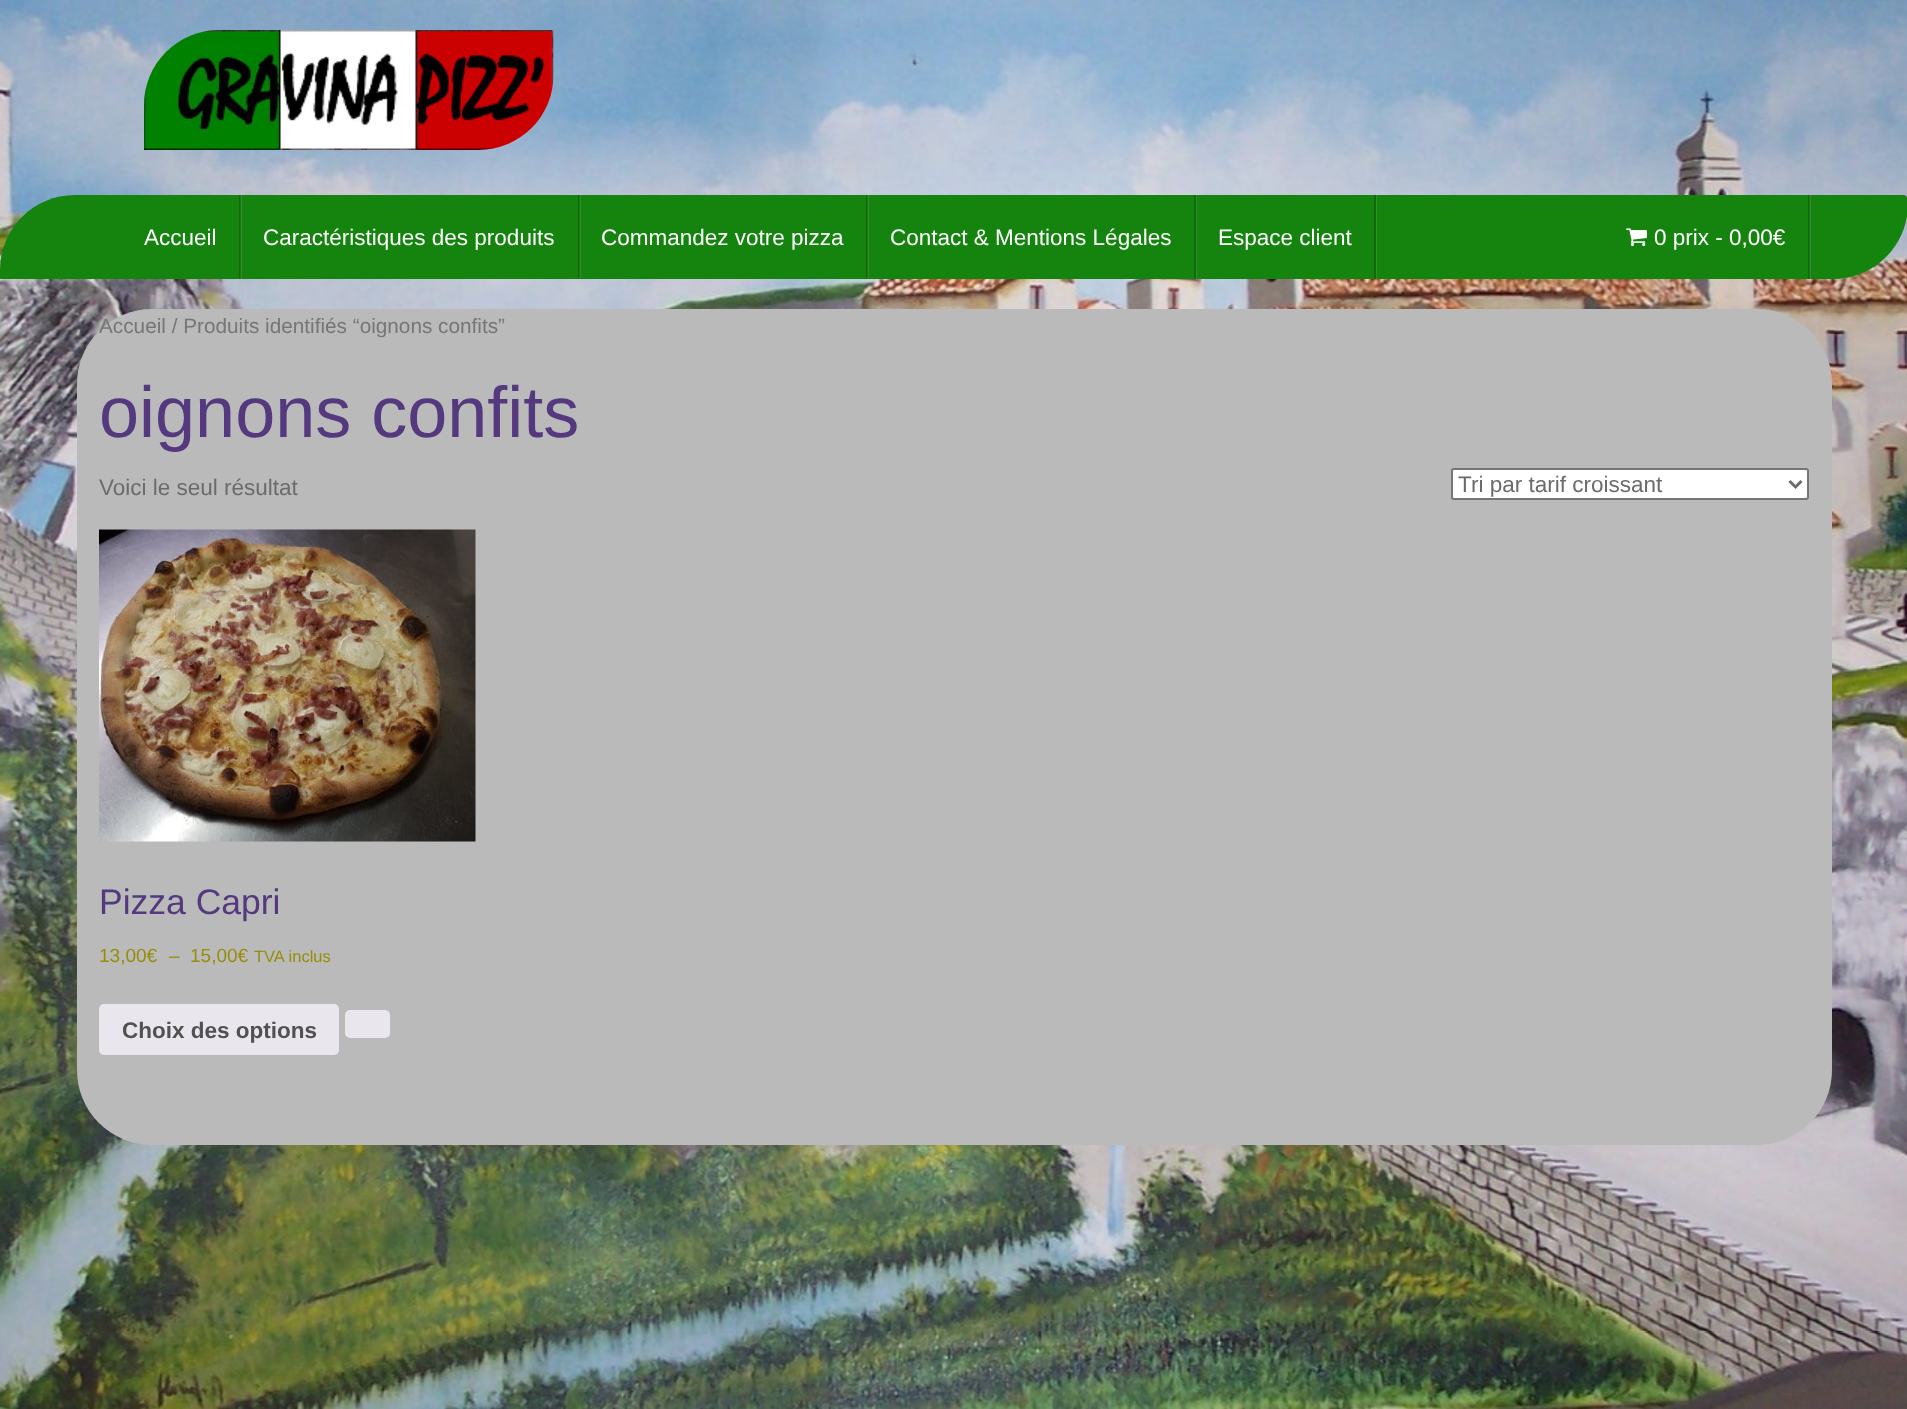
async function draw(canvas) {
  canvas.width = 1907;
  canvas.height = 1409;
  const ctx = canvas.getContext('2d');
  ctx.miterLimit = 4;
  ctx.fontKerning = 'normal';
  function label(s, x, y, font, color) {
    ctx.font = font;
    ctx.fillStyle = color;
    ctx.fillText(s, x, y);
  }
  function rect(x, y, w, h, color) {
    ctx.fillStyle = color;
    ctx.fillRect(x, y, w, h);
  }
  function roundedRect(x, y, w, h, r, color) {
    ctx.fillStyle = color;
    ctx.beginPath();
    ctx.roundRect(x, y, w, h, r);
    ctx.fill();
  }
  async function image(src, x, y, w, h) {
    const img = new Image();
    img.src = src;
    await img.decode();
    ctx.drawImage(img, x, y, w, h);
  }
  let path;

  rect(0, 0, 1907, 1409, '#fff');
  await image('assets/img1.png', 0, 0, 1907, 1409);
  await image('assets/img2.png', 144, 30, 410, 120);
  ctx.fillStyle = '#14840e';
  path = new Path2D('M75 195H1903C1906 195 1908 197 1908 200V204C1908 245.5 1874.5 279 1833 279H0V270C0 228.5 33.5 195 75 195Z');
  ctx.fill(path);
  rect(240, 195, 2, 84, '#2c9026');
  rect(239, 195, 2, 84, '#00000033');
  label('Accueil', 144, 245, '22.5px Liberation Sans', '#fff');
  rect(579, 195, 2, 84, '#2c9026');
  rect(578, 195, 2, 84, '#00000033');
  label('Caractéristiques des produits', 263, 245, '22.5px Liberation Sans', '#fff');
  rect(867, 195, 2, 84, '#2c9026');
  rect(866, 195, 2, 84, '#00000033');
  label('Commandez votre pizza', 601, 245, '22.5px Liberation Sans', '#fff');
  rect(1196, 195, 1, 84, '#2c9026');
  rect(1194, 195, 2, 84, '#106a0b');
  label('Contact & Mentions Légales', 890, 245, '22.5px Liberation Sans', '#fff');
  rect(1376, 195, 1, 84, '#2c9026');
  rect(1374, 195, 2, 84, '#106a0b');
  label('Espace client', 1218, 245, '22.5px Liberation Sans', '#fff');
  rect(1809, 195, 2, 84, '#2c9026');
  rect(1808, 195, 2, 84, '#00000033');
  await image('assets/img3.png', 1626, 228, 21, 19);
  label('0 prix - 0,00€', 1654, 245, '22.5px Liberation Sans', '#fff');
  roundedRect(77, 309, 1755, 836, 75, '#bababa');
  label('Accueil / Produits identifiés “oignons confits”', 99, 333, '20.75px Liberation Sans', '#767676');
  label('oignons confits', 99, 437, '72px Liberation Sans', '#54397e');
  label('Voici le seul résultat', 99, 495, '22.5px Liberation Sans', '#6b6b6b');
  ctx.fillStyle = '#fff';
  ctx.beginPath();
  ctx.roundRect(1452, 469, 356, 30, 2);
  ctx.fill();
  ctx.strokeStyle = '#767676';
  ctx.lineWidth = 2;
  ctx.stroke();
  path = new Path2D('M1789.5 481L1795.5 487L1801.5 481');
  ctx.strokeStyle = '#6b6b6b';
  ctx.lineWidth = 3;
  ctx.stroke(path);
  label('Tri par tarif croissant', 1458, 492, '22.5px Liberation Sans', '#6b6b6b');
  await image('assets/img4.png', 99, 529, 377, 313);
  label('Pizza Capri', 99, 914, '35.5px Liberation Sans', '#54397e');
  label('13,00€', 99, 962, '19px Liberation Sans', '#958e09');
  label('–', 169, 962, '19px Liberation Sans', '#958e09');
  label('15,00€', 190, 962, '19px Liberation Sans', '#958e09');
  label('TVA inclus', 254, 962, '16.5px Liberation Sans', '#958e09');
  roundedRect(99, 1004, 240, 51, 5, '#e9e6ed');
  label('Choix des options', 122, 1038, 'bold 22.5px Liberation Sans', '#515151');
  roundedRect(345, 1010, 45, 28, 5, '#e9e6ed');
}

draw(document.querySelector('canvas'));
